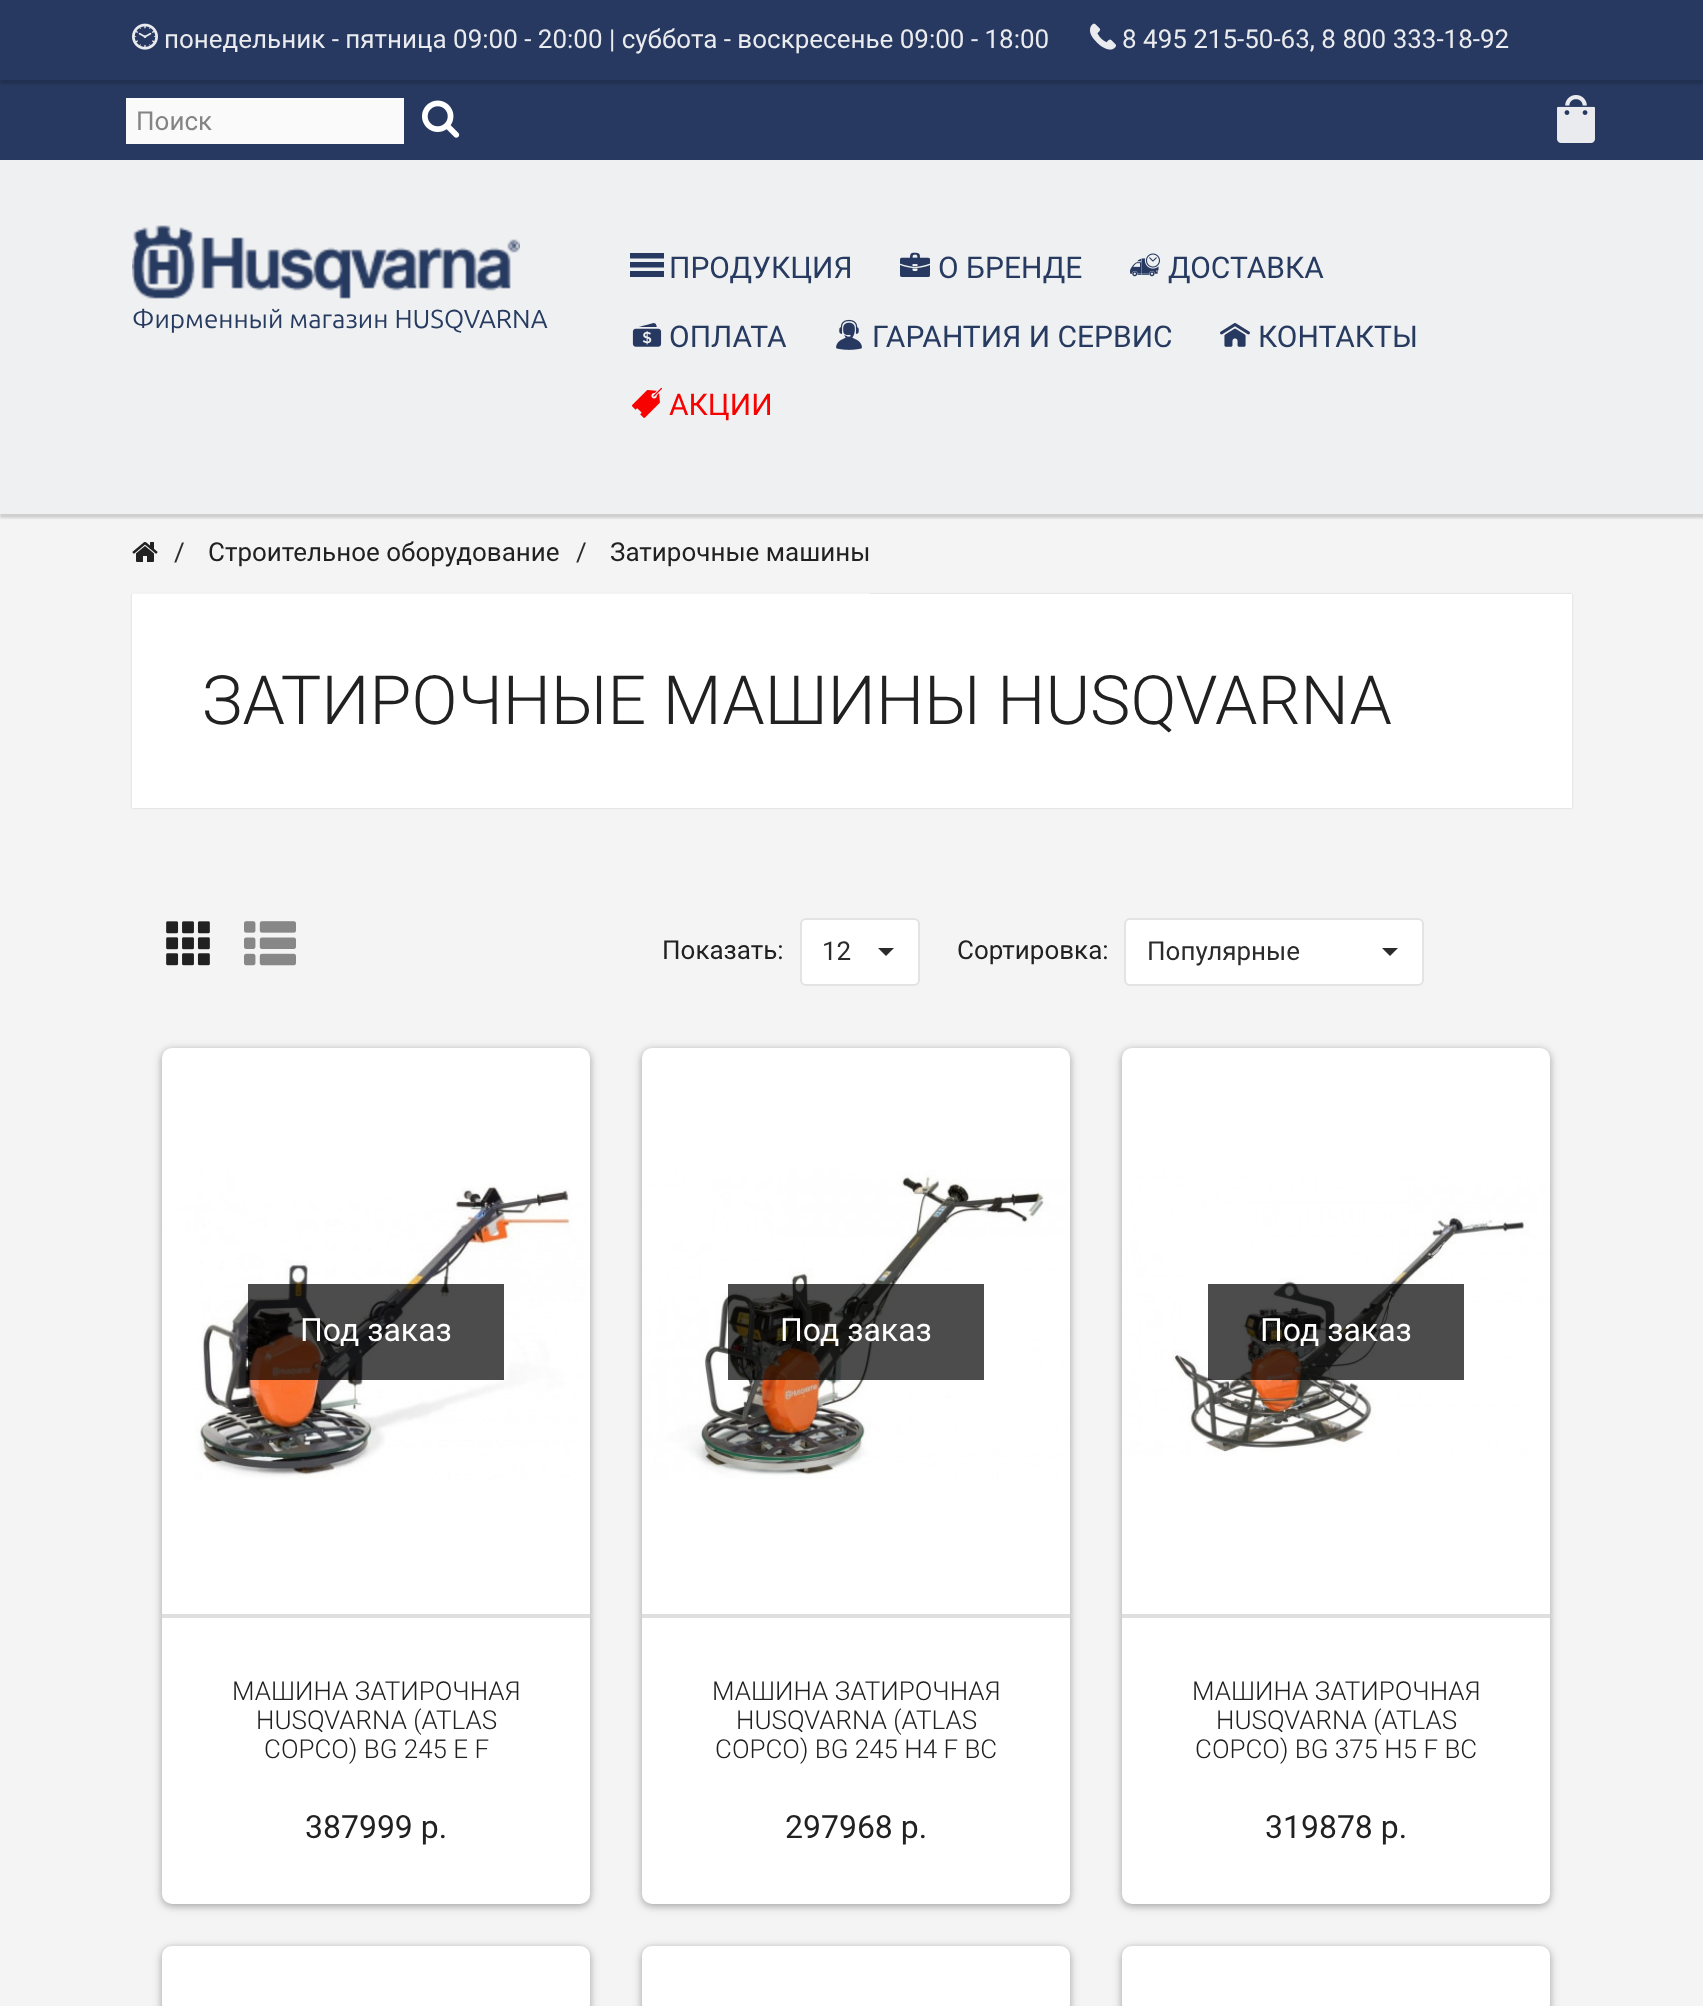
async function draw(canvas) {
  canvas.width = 1703;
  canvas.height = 2006;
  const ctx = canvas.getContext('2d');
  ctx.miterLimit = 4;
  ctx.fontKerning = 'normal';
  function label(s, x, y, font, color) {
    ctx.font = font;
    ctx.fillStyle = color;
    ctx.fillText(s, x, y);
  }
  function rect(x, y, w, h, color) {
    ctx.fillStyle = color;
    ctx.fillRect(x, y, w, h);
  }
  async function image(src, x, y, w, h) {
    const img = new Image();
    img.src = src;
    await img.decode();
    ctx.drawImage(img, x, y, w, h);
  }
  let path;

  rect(0, 0, 1703, 2006, '#f4f4f4');
  ctx.fillStyle = '#00000026';
  ctx.filter = 'blur(1px)';
  ctx.beginPath();
  ctx.rect(0, 4, 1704, 514);
  ctx.fill();
  ctx.filter = 'none';
  rect(0, 80, 1703, 80, '#273960');
  ctx.fillStyle = '#00000026';
  ctx.filter = 'blur(1px)';
  ctx.beginPath();
  ctx.rect(0, 4, 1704, 80);
  ctx.fill();
  ctx.filter = 'none';
  rect(0, 0, 1703, 80, '#273960');
  await image('assets/img1.png', 132, 23, 26, 27);
  label('понедельник - пятница 09:00 - 20:00 | суббота - воскресенье 09:00 - 18:00', 164, 48, '26px Roboto', '#eaebee');
  await image('assets/img2.png', 1090, 23, 26, 27);
  label('8 495 215-50-63, 8 800 333-18-92', 1122, 48, '26px Roboto', '#eaebee');
  rect(126, 98, 278, 46, '#fafafa');
  label('Поиск', 136, 130, '26px Roboto', '#848484');
  await image('assets/img3.png', 422, 100, 38, 38);
  await image('assets/img4.png', 1557, 95, 38, 48);
  rect(0, 160, 1703, 354, '#eff0f1');
  await image('assets/img5.png', 132, 225, 388, 74);
  label('Фирменный магазин HUSQVARNA', 132, 328, '26px Ubuntu', '#273a60');
  ctx.fillStyle = '#273960';
  path = new Path2D('M630 253H664V258.5H630ZM630 262H664V267.5H630ZM630 271H664V277H630Z');
  ctx.fill(path);
  label('ПРОДУКЦИЯ', 669, 278, '30px Roboto', '#273a60');
  await image('assets/img6.png', 900, 252, 30, 25);
  label('О БРЕНДЕ', 938, 278, '30px Roboto', '#273a60');
  await image('assets/img7.png', 1130, 253, 30, 24);
  label('ДОСТАВКА', 1168, 278, '30px Roboto', '#273a60');
  await image('assets/img8.png', 632, 323, 30, 24);
  label('ОПЛАТА', 669, 347, '30px Roboto', '#273a60');
  await image('assets/img9.png', 836, 319, 26, 31);
  label('ГАРАНТИЯ И СЕРВИС', 872, 347, '30px Roboto', '#273a60');
  await image('assets/img10.png', 1220, 323, 30, 24);
  label('КОНТАКТЫ', 1258, 347, '30px Roboto', '#273a60');
  await image('assets/img11.png', 632, 387, 30, 31);
  label('АКЦИИ', 669, 415, '30px Roboto', '#f70101');
  ctx.fillStyle = '#00000026';
  ctx.filter = 'blur(1px)';
  ctx.beginPath();
  ctx.rect(132, 594, 1440, 214);
  ctx.fill();
  ctx.filter = 'none';
  rect(132, 593, 738, 1, '#f4f4f4');
  await image('assets/img12.png', 132, 542, 26, 20);
  label('/', 174, 561, '26px Roboto', '#2b2b2b');
  label('Строительное оборудование', 208, 561, '26px Roboto', '#212121');
  label('/', 576, 561, '26px Roboto', '#2b2b2b');
  label('Затирочные машины', 610, 561, '26px Roboto', '#212121');
  rect(132, 594, 1440, 214, '#fff');
  label('ЗАТИРОЧНЫЕ МАШИНЫ HUSQVARNA', 202, 724, '300 68px Roboto', '#212121');
  await image('assets/img13.png', 166, 921, 44, 45);
  await image('assets/img14.png', 244, 921, 52, 45);
  label('Показать:', 662, 959, '26px Roboto', '#212121');
  ctx.fillStyle = '#fff';
  ctx.beginPath();
  ctx.roundRect(801, 919, 118, 66, 5);
  ctx.fill();
  ctx.strokeStyle = '#e3e3e3';
  ctx.lineWidth = 2;
  ctx.stroke();
  label('12', 822, 960, '26px Roboto', '#2b2b2b');
  path = new Path2D('M878 948H894L886 956Z');
  ctx.fill(path);
  label('Сортировка:', 957, 959, '26px Roboto', '#212121');
  ctx.fillStyle = '#fff';
  ctx.beginPath();
  ctx.roundRect(1125, 919, 298, 66, 5);
  ctx.fill();
  ctx.stroke();
  label('Популярные', 1147, 960, '26px Roboto', '#2b2b2b');
  path = new Path2D('M1382 948H1398L1390 956Z');
  ctx.fill(path);
  ctx.fillStyle = '#0000003d';
  ctx.filter = 'blur(5px)';
  ctx.beginPath();
  ctx.roundRect(162, 1050, 428, 856, 10);
  ctx.fill();
  ctx.filter = 'none';
  ctx.fillStyle = '#0000001f';
  ctx.filter = 'blur(3px)';
  ctx.beginPath();
  ctx.roundRect(162, 1050, 428, 856, 10);
  ctx.fill();
  ctx.filter = 'none';
  ctx.fillStyle = '#fff';
  ctx.beginPath();
  ctx.roundRect(162, 1048, 428, 566, [10, 10, 0, 0]);
  ctx.fill();
  await image('assets/img15.png', 164, 1051, 424, 429);
  rect(248, 1284, 256, 96, '#000000b3');
  label('Под заказ', 300, 1341, '32px Roboto', '#fff');
  ctx.beginPath();
  ctx.roundRect(162, 1614, 428, 290, [0, 0, 10, 10]);
  ctx.fill();
  rect(162, 1614, 428, 4, '#dfdfdf');
  label('МАШИНА ЗАТИРОЧНАЯ', 232, 1700, '300 26px Roboto', '#212121');
  label('HUSQVARNA (ATLAS', 256, 1729, '300 26px Roboto', '#212121');
  label('COPCO) BG 245 E F', 264, 1758, '300 26px Roboto', '#212121');
  label('387999 р.', 305, 1838, '32px Roboto', '#212121');
  ctx.fillStyle = '#0000003d';
  ctx.filter = 'blur(5px)';
  ctx.beginPath();
  ctx.roundRect(642, 1050, 428, 856, 10);
  ctx.fill();
  ctx.filter = 'none';
  ctx.fillStyle = '#0000001f';
  ctx.filter = 'blur(3px)';
  ctx.beginPath();
  ctx.roundRect(642, 1050, 428, 856, 10);
  ctx.fill();
  ctx.filter = 'none';
  ctx.fillStyle = '#fff';
  ctx.beginPath();
  ctx.roundRect(642, 1048, 428, 566, [10, 10, 0, 0]);
  ctx.fill();
  await image('assets/img16.png', 644, 1051, 424, 428);
  rect(728, 1284, 256, 96, '#000000b3');
  label('Под заказ', 780, 1341, '32px Roboto', '#fff');
  ctx.beginPath();
  ctx.roundRect(642, 1614, 428, 290, [0, 0, 10, 10]);
  ctx.fill();
  rect(642, 1614, 428, 4, '#dfdfdf');
  label('МАШИНА ЗАТИРОЧНАЯ', 712, 1700, '300 26px Roboto', '#212121');
  label('HUSQVARNA (ATLAS', 736, 1729, '300 26px Roboto', '#212121');
  label('COPCO) BG 245 H4 F BC', 715, 1758, '300 26px Roboto', '#212121');
  label('297968 р.', 785, 1838, '32px Roboto', '#212121');
  ctx.fillStyle = '#0000003d';
  ctx.filter = 'blur(5px)';
  ctx.beginPath();
  ctx.roundRect(1122, 1050, 428, 856, 10);
  ctx.fill();
  ctx.filter = 'none';
  ctx.fillStyle = '#0000001f';
  ctx.filter = 'blur(3px)';
  ctx.beginPath();
  ctx.roundRect(1122, 1050, 428, 856, 10);
  ctx.fill();
  ctx.filter = 'none';
  ctx.fillStyle = '#fff';
  ctx.beginPath();
  ctx.roundRect(1122, 1048, 428, 566, [10, 10, 0, 0]);
  ctx.fill();
  await image('assets/img17.png', 1124, 1051, 424, 404);
  rect(1208, 1284, 256, 96, '#000000b3');
  label('Под заказ', 1260, 1341, '32px Roboto', '#fff');
  ctx.beginPath();
  ctx.roundRect(1122, 1614, 428, 290, [0, 0, 10, 10]);
  ctx.fill();
  rect(1122, 1614, 428, 4, '#dfdfdf');
  label('МАШИНА ЗАТИРОЧНАЯ', 1192, 1700, '300 26px Roboto', '#212121');
  label('HUSQVARNA (ATLAS', 1216, 1729, '300 26px Roboto', '#212121');
  label('COPCO) BG 375 H5 F BC', 1195, 1758, '300 26px Roboto', '#212121');
  label('319878 р.', 1265, 1838, '32px Roboto', '#212121');
  ctx.fillStyle = '#0000003d';
  ctx.filter = 'blur(5px)';
  ctx.beginPath();
  ctx.roundRect(162, 1948, 428, 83, 10);
  ctx.fill();
  ctx.filter = 'none';
  ctx.fillStyle = '#0000001f';
  ctx.filter = 'blur(3px)';
  ctx.beginPath();
  ctx.roundRect(162, 1948, 428, 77, 10);
  ctx.fill();
  ctx.filter = 'none';
  ctx.fillStyle = '#fff';
  path = new Path2D('M172 1946H580C585.5 1946 590 1950.5 590 1956V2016H162V1956C162 1950.5 166.5 1946 172 1946Z');
  ctx.fill(path);
  await image('assets/img18.png', 164, 1949, 424, 1);
  ctx.fillStyle = '#0000003d';
  ctx.filter = 'blur(5px)';
  ctx.beginPath();
  ctx.roundRect(642, 1948, 428, 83, 10);
  ctx.fill();
  ctx.filter = 'none';
  ctx.fillStyle = '#0000001f';
  ctx.filter = 'blur(3px)';
  ctx.beginPath();
  ctx.roundRect(642, 1948, 428, 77, 10);
  ctx.fill();
  ctx.filter = 'none';
  ctx.fillStyle = '#fff';
  path = new Path2D('M652 1946H1060C1065.5 1946 1070 1950.5 1070 1956V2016H642V1956C642 1950.5 646.5 1946 652 1946Z');
  ctx.fill(path);
  await image('assets/img18.png', 644, 1949, 424, 1);
  ctx.fillStyle = '#0000003d';
  ctx.filter = 'blur(5px)';
  ctx.beginPath();
  ctx.roundRect(1122, 1948, 428, 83, 10);
  ctx.fill();
  ctx.filter = 'none';
  ctx.fillStyle = '#0000001f';
  ctx.filter = 'blur(3px)';
  ctx.beginPath();
  ctx.roundRect(1122, 1948, 428, 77, 10);
  ctx.fill();
  ctx.filter = 'none';
  ctx.fillStyle = '#fff';
  path = new Path2D('M1132 1946H1540C1545.5 1946 1550 1950.5 1550 1956V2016H1122V1956C1122 1950.5 1126.5 1946 1132 1946Z');
  ctx.fill(path);
  await image('assets/img18.png', 1124, 1949, 424, 1);
}

draw(document.querySelector('canvas'));
